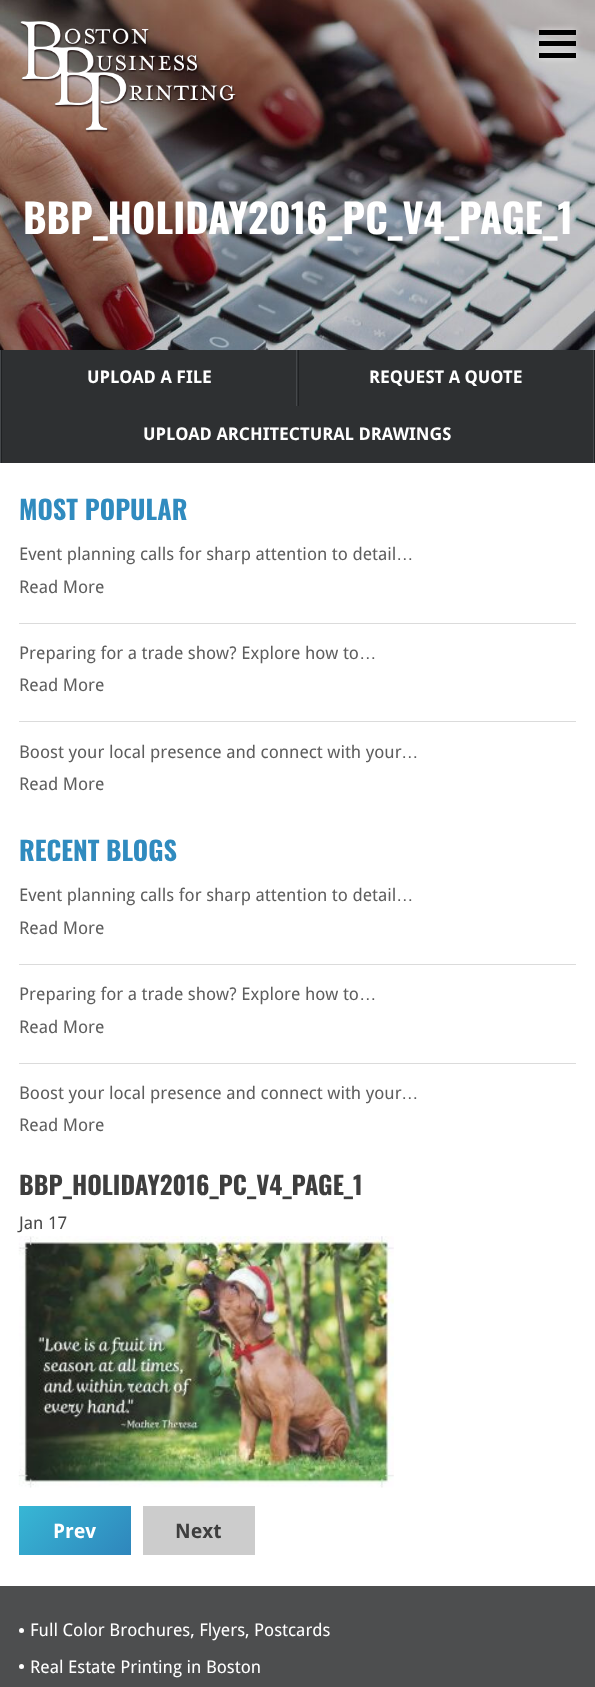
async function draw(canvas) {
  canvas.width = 595;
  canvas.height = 1687;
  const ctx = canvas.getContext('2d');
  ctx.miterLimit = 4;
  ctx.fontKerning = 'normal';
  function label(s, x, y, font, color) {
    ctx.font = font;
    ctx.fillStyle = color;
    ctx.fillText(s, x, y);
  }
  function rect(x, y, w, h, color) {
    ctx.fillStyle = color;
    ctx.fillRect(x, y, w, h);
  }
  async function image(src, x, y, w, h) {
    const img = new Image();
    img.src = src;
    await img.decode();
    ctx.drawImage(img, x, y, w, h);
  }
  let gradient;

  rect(0, 0, 595, 1687, '#fff');
  await image('assets/img2.png', 0, 0, 595, 350);
  await image('assets/img1.png', 20, 21, 217, 112);
  ctx.fillStyle = '#ffffffb3';
  ctx.filter = 'blur(3px)';
  ctx.beginPath();
  ctx.rect(539, 30, 37, 5);
  ctx.fill();
  ctx.filter = 'none';
  rect(539, 30, 37, 5, '#000');
  ctx.fillStyle = '#ffffffb3';
  ctx.filter = 'blur(3px)';
  ctx.beginPath();
  ctx.rect(539, 41, 37, 5);
  ctx.fill();
  ctx.filter = 'none';
  rect(539, 41, 37, 5, '#000');
  ctx.fillStyle = '#ffffffb3';
  ctx.filter = 'blur(3px)';
  ctx.beginPath();
  ctx.rect(539, 53, 37, 5);
  ctx.fill();
  ctx.filter = 'none';
  rect(539, 53, 37, 5, '#000');
  label('BBP_HOLIDAY2016_PC_V4_PAGE_1', 23, 234, 'bold 40px Oswald', '#fff');
  rect(2, 350, 591, 113, '#2e3032');
  rect(594, 350, 1, 113, '#1f2123');
  rect(0, 350, 1, 113, '#45484b');
  rect(296, 350, 1, 56, '#45484b');
  rect(1, 350, 1, 113, '#1f2123');
  label('UPLOAD A FILE', 87, 383, 'bold 17.5px Droid Sans', '#fff');
  rect(593, 350, 1, 113, '#45484b');
  rect(298, 350, 1, 56, '#1f2123');
  label('REQUEST A QUOTE', 369, 383, 'bold 17.5px Droid Sans', '#fff');
  label('UPLOAD ARCHITECTURAL DRAWINGS', 143, 440, 'bold 17.5px Droid Sans', '#fff');
  label('MOST POPULAR', 19, 520, 'bold 26.25px Oswald', '#308bbf');
  label('Event planning calls for sharp attention to detail', 19, 560, '17.5px Droid Sans', '#5e5e5e');
  label('…', 396, 560, '17.5px Liberation Sans', '#5e5e5e');
  label('Read More', 19, 593, '17.5px Droid Sans', '#5e5e5e');
  rect(19, 623, 557, 1, '#dbdbdb');
  label('Preparing for a trade show? Explore how to', 19, 659, '17.5px Droid Sans', '#5e5e5e');
  label('…', 359, 659, '17.5px Liberation Sans', '#5e5e5e');
  label('Read More', 19, 691, '17.5px Droid Sans', '#5e5e5e');
  rect(19, 721, 557, 1, '#dbdbdb');
  label('Boost your local presence and connect with your', 19, 758, '17.5px Droid Sans', '#5e5e5e');
  label('…', 401, 758, '17.5px Liberation Sans', '#5e5e5e');
  label('Read More', 19, 790, '17.5px Droid Sans', '#5e5e5e');
  label('RECENT BLOGS', 19, 861, 'bold 26.25px Oswald', '#308bbf');
  label('Event planning calls for sharp attention to detail', 19, 901, '17.5px Droid Sans', '#5e5e5e');
  label('…', 396, 901, '17.5px Liberation Sans', '#5e5e5e');
  label('Read More', 19, 934, '17.5px Droid Sans', '#5e5e5e');
  rect(19, 964, 557, 1, '#dbdbdb');
  label('Preparing for a trade show? Explore how to', 19, 1000, '17.5px Droid Sans', '#5e5e5e');
  label('…', 359, 1000, '17.5px Liberation Sans', '#5e5e5e');
  label('Read More', 19, 1033, '17.5px Droid Sans', '#5e5e5e');
  rect(19, 1063, 557, 1, '#dbdbdb');
  label('Boost your local presence and connect with your', 19, 1099, '17.5px Droid Sans', '#5e5e5e');
  label('…', 401, 1099, '17.5px Liberation Sans', '#5e5e5e');
  label('Read More', 19, 1131, '17.5px Droid Sans', '#5e5e5e');
  label('BBP_HOLIDAY2016_PC_V4_PAGE_1', 19, 1195, 'bold 25px Oswald', '#3e3e3e');
  label('Jan 17', 19, 1229, '17.5px Droid Sans', '#484848');
  await image('assets/img3.png', 18, 1236, 376, 252);
  gradient = ctx.createLinearGradient(35, 1490, 115, 1571);
  gradient.addColorStop(0, '#37b7d5');
  gradient.addColorStop(1, '#2f86bc');
  ctx.fillStyle = gradient;
  ctx.fillRect(19, 1506, 112, 49);
  label('Prev', 53, 1538, 'bold 20px Droid Sans', '#fff');
  rect(143, 1506, 112, 49, '#ccc');
  label('Next', 175, 1538, 'bold 20px Droid Sans', '#3e3e3e');
  rect(0, 1586, 595, 101, '#4d4e4f');
  ctx.fillStyle = '#fff';
  ctx.beginPath();
  ctx.arc(21.5, 1630.5, 2.5, 0, 2 * Math.PI);
  ctx.fill();
  label('Full Color Brochures, Flyers, Postcards', 30, 1636, '17.5px Droid Sans', '#fff');
  ctx.beginPath();
  ctx.arc(21.5, 1666.5, 2.5, 0, 2 * Math.PI);
  ctx.fill();
  label('Real Estate Printing in Boston', 30, 1673, '17.5px Droid Sans', '#fff');
}

draw(document.querySelector('canvas'));
